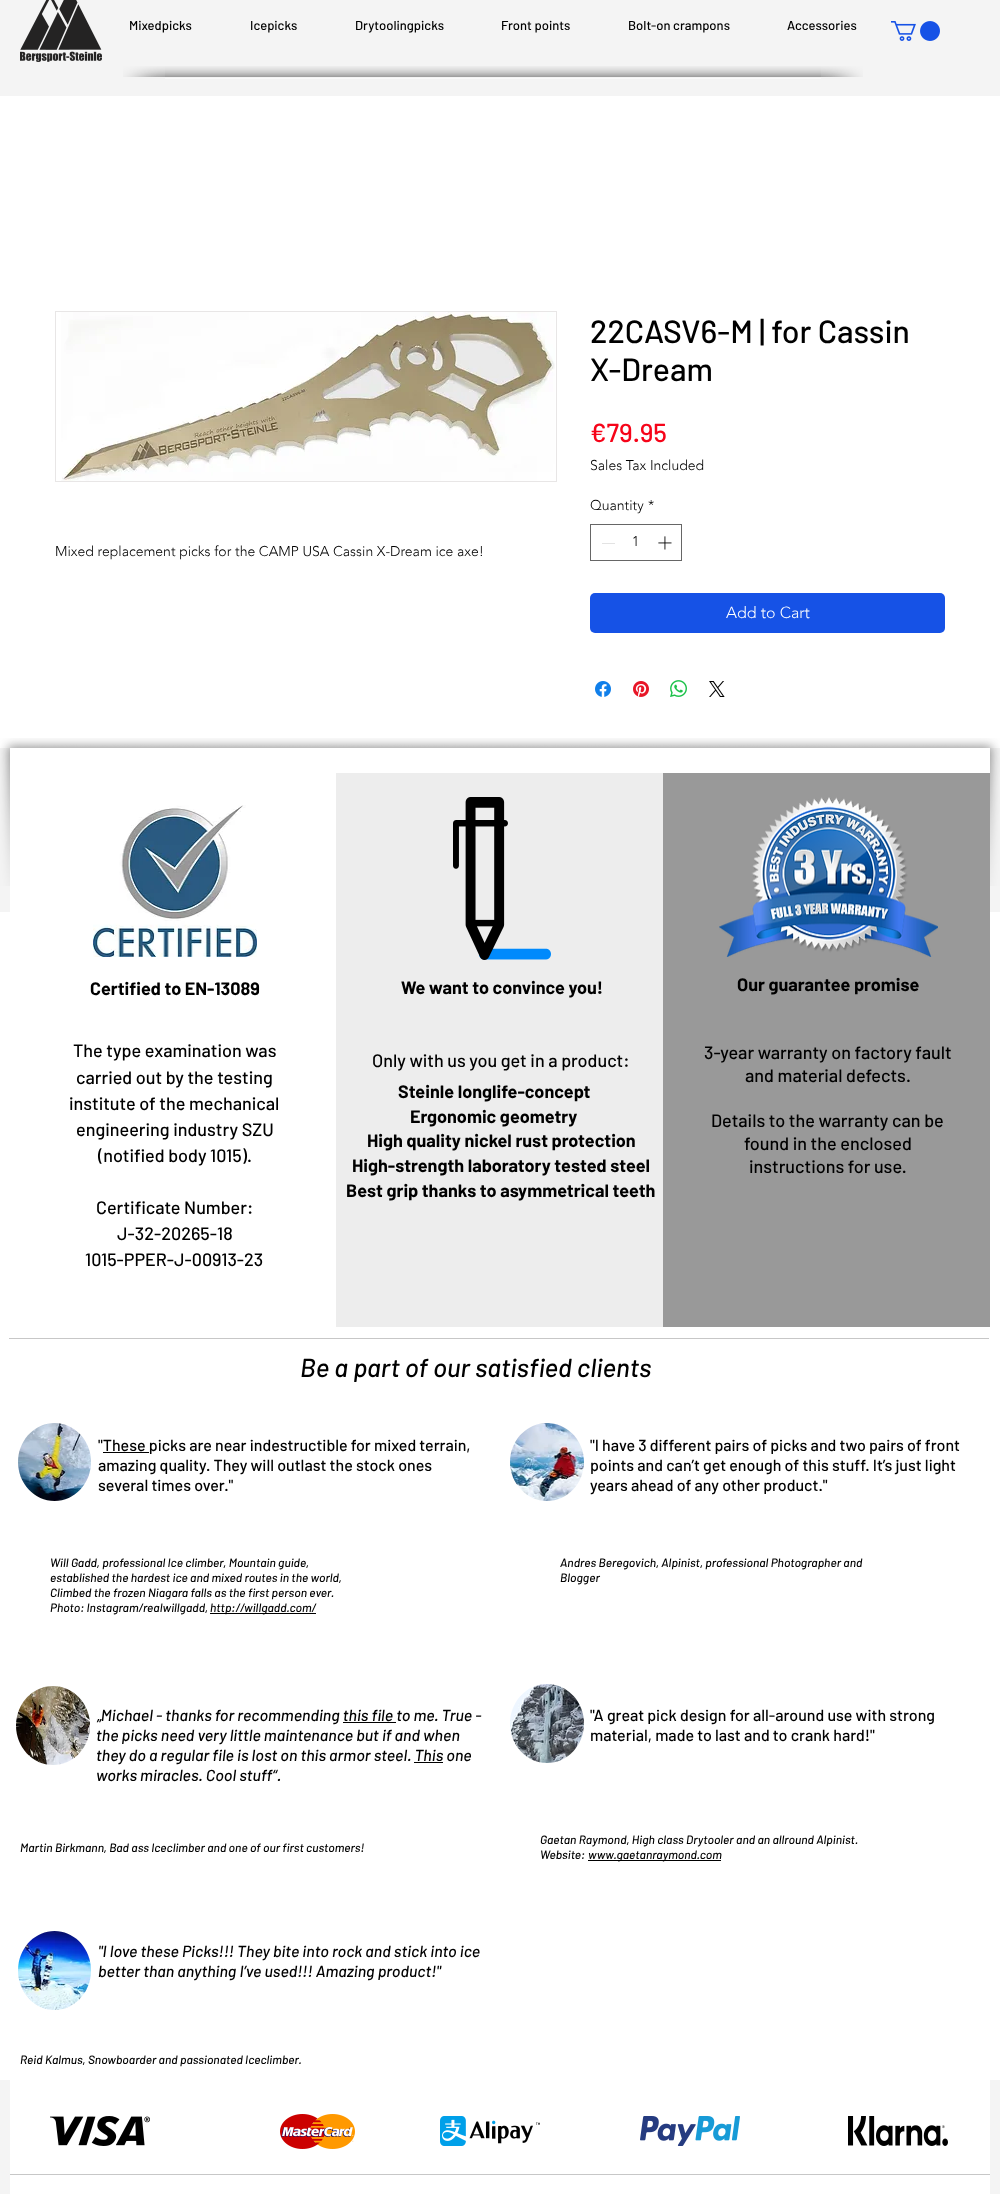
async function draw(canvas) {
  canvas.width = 1000;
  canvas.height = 2194;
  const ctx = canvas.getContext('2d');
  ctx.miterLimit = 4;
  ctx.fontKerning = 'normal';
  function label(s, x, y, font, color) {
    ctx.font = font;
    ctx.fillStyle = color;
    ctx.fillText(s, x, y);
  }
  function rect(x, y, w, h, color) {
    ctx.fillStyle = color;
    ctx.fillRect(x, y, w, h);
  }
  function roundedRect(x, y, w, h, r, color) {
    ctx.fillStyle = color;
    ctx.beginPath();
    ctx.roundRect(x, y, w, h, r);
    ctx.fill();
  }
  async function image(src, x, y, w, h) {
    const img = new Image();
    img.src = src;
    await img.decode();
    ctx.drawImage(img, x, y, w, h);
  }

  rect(0, 0, 1000, 2194, '#f4f4f4');
  await image('assets/img1.png', 20, 0, 82, 62);
  label('Mixedpicks', 129, 30, '500 13px Barlow', '#000');
  label('Icepicks', 250, 30, '500 13px Barlow', '#000');
  label('Drytoolingpicks', 355, 30, '500 13px Barlow', '#000');
  label('Front points', 501, 30, '500 13px Barlow', '#000');
  label('Bolt-on crampons', 628, 30, '500 13px Barlow', '#000');
  label('Accessories', 787, 30, '500 13px Barlow', '#000');
  await image('assets/img2.png', 891, 21, 49, 20);
  await image('assets/img3.png', 165, 66, 656, 13);
  await image('assets/img4.png', 123, 66, 42, 11);
  await image('assets/img5.png', 821, 66, 42, 11);
  rect(0, 96, 1000, 652, '#fff');
  ctx.strokeStyle = '#e8e6e6';
  ctx.strokeRect(55.5, 311.5, 501, 170);
  await image('assets/img6.png', 61, 312, 494, 169);
  label('Mixed replacement picks for the CAMP USA Cassin X-Dream ice axe!', 55, 556, '300 14px "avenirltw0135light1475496"', '#000');
  label('22CASV6-M | for Cassin', 590, 343, '500 32px Barlow', '#000');
  label('X-Dream', 590, 381, '500 32px Barlow', '#000');
  label('€79.95', 590, 442, '500 26px Barlow', '#f60419');
  label('Sales Tax Included', 590, 470, '300 14px "avenirltw0135light1475496"', '#000');
  label('Quantity', 590, 510, '300 14px "avenirltw0135light1475496"', '#000');
  label('*', 648, 510, '300 14px "avenirltw0135light1475496"', '#000');
  ctx.strokeStyle = '#666';
  ctx.strokeRect(590.5, 524.5, 91, 36);
  rect(602, 543, 13, 1, '#e3e3e3');
  label('1', 632, 546, '300 14px "avenirltw0135light1475496"', '#000');
  await image('assets/img7.png', 658, 536, 14, 14);
  roundedRect(590, 593, 355, 40, 5, '#1652e6');
  label('Add to Cart', 726, 618, '300 16px "avenirltw0135light1475496"', '#fff');
  await image('assets/img8.png', 595, 681, 16, 16);
  await image('assets/img9.png', 633, 681, 16, 16);
  await image('assets/img10.png', 670, 680, 17, 17);
  await image('assets/img11.png', 709, 681, 16, 16);
  await image('assets/img12.png', 0, 738, 45, 148);
  await image('assets/img13.png', 45, 738, 910, 10);
  await image('assets/img14.png', 955, 738, 45, 148);
  rect(10, 748, 980, 1446, '#fff');
  rect(0, 912, 1000, 1168, '#fff');
  await image('assets/img15.png', 93, 805, 164, 152);
  label('Certified to EN-13089', 90, 995, 'bold 18px Barlow', '#000');
  label('The type examination was', 73, 1057, '500 18px Barlow', '#000');
  label('carried out by the testing', 76, 1084, '500 18px Barlow', '#000');
  label('institute of the mechanical', 69, 1110, '500 18px Barlow', '#000');
  label('engineering industry SZU', 76, 1136, '500 18px Barlow', '#000');
  label('(notified body 1015).', 98, 1162, '500 18px Barlow', '#000');
  label('Certificate Number:', 96, 1214, '500 18px Barlow', '#000');
  label('J-32-20265-18', 117, 1240, '500 18px Barlow', '#000');
  label('1015-PPER-J-00913-23', 85, 1266, '500 18px Barlow', '#000');
  rect(336, 773, 327, 554, '#ededed');
  await image('assets/img16.png', 453, 797, 98, 163);
  label('We want to convince you!', 401, 994, 'bold 18px Barlow', '#000');
  label('Only with us you get in a product:', 372, 1067, '500 18px Barlow', '#000');
  label('Best grip thanks to asymmetrical teeth', 346, 1197, 'bold 18px Barlow', '#000');
  rect(663, 773, 327, 554, '#999');
  await image('assets/img17.png', 719, 797, 219, 160);
  label('Our guarantee promise', 737, 991, 'bold 18px Barlow', '#000');
  label('3-year warranty on factory fault', 704, 1059, '500 18px Barlow', '#000');
  label('and material defects.', 745, 1082, '500 18px Barlow', '#000');
  label('Details to the warranty can be', 711, 1127, '500 18px Barlow', '#000');
  label('found in the enclosed', 744, 1150, '500 18px Barlow', '#000');
  label('instructions for use.', 749, 1173, '500 18px Barlow', '#000');
  label('Steinle longlife-concept', 398, 1098, 'bold 18px Barlow', '#000');
  label('Ergonomic geometry', 410, 1123, 'bold 18px Barlow', '#000');
  label('High quality nickel rust protection', 367, 1147, 'bold 18px Barlow', '#000');
  label('High-strength laboratory tested steel', 352, 1172, 'bold 18px Barlow', '#000');
  rect(9, 1338, 980, 1, '#c7c7c7');
  label('Be a part of our satisfied clients', 300, 1377, 'italic 500 26px Barlow', '#000');
  await image('assets/img18.png', 18, 1423, 73, 78);
  label('"These picks are near indestructible for mixed terrain,', 98, 1451, '500 16px Barlow', '#000');
  rect(103, 1452, 46, 1, '#000');
  label('amazing quality. They will outlast the stock ones', 98, 1471, '500 16px Barlow', '#000');
  label('several times over."', 98, 1491, '500 16px Barlow', '#000');
  await image('assets/img19.png', 510, 1423, 74, 78);
  label('"I have 3 different pairs of picks and two pairs of front', 590, 1451, '500 16px Barlow', '#000');
  label('points and can’t get enough of this stuff. It’s just light', 590, 1471, '500 16px Barlow', '#000');
  label('years ahead of any other product."', 590, 1491, '500 16px Barlow', '#000');
  label('Will Gadd, professional Ice climber, Mountain guide,', 50, 1567, 'italic 500 12px Barlow', '#000');
  label('established the hardest ice and mixed routes in the world,', 50, 1582, 'italic 500 12px Barlow', '#000');
  label('Climbed the frozen Niagara falls as the first person ever.', 50, 1597, 'italic 500 12px Barlow', '#000');
  label('Photo: Instagram/realwillgadd,', 50, 1612, 'italic 500 12px Barlow', '#000');
  rect(210, 1613, 106, 1, '#000');
  label('http://willgadd.com/', 210, 1612, 'italic 500 12px Barlow', '#000');
  label('Andres Beregovich, Alpinist, professional Photographer and', 560, 1567, 'italic 500 12px Barlow', '#000');
  label('Blogger', 560, 1582, 'italic 500 12px Barlow', '#000');
  await image('assets/img20.png', 16, 1686, 74, 79);
  label('„Michael - thanks for recommending this file to me. True -', 96, 1721, 'italic 500 16px Barlow', '#000');
  rect(343, 1722, 53, 1, '#000');
  label('the picks need very little maintenance but if and when', 96, 1741, 'italic 500 16px Barlow', '#000');
  label('they do a regular file is lost on this armor steel. This one', 96, 1761, 'italic 500 16px Barlow', '#000');
  rect(414, 1762, 29, 1, '#000');
  label('works miracles. Cool stuff“.', 96, 1781, 'italic 500 16px Barlow', '#000');
  await image('assets/img21.png', 510, 1684, 74, 79);
  label('"A great pick design for all-around use with strong', 590, 1721, '500 16px Barlow', '#000');
  label('material, made to last and to crank hard!"', 590, 1741, '500 16px Barlow', '#000');
  label('Martin Birkmann, Bad ass Iceclimber and one of our first customers!', 20, 1852, 'italic 500 12px Barlow', '#000');
  label('Gaetan Raymond, High class Drytooler and an allround Alpinist.', 540, 1844, 'italic 500 12px Barlow', '#000');
  label('Website:', 540, 1859, 'italic 500 12px Barlow', '#000');
  rect(588, 1860, 133, 1, '#000');
  label('www.gaetanraymond.com', 588, 1859, 'italic 500 12px Barlow', '#000');
  await image('assets/img22.png', 18, 1931, 73, 79);
  label('"I love these Picks!!! They bite into rock and stick into ice', 98, 1957, 'italic 500 16px Barlow', '#000');
  label('better than anything I’ve used!!! Amazing product!"', 98, 1977, 'italic 500 16px Barlow', '#000');
  label('Reid Kalmus, Snowboarder and passionated Iceclimber.', 20, 2064, 'italic 500 12px Barlow', '#000');
  await image('assets/img23.png', 50, 2116, 100, 30);
  await image('assets/img24.png', 280, 2114, 75, 35);
  await image('assets/img25.png', 440, 2116, 100, 30);
  await image('assets/img26.png', 640, 2116, 100, 30);
  await image('assets/img27.png', 848, 2116, 100, 30);
  rect(10, 2174, 980, 1, '#c7c7c7');
}

draw(document.querySelector('canvas'));
